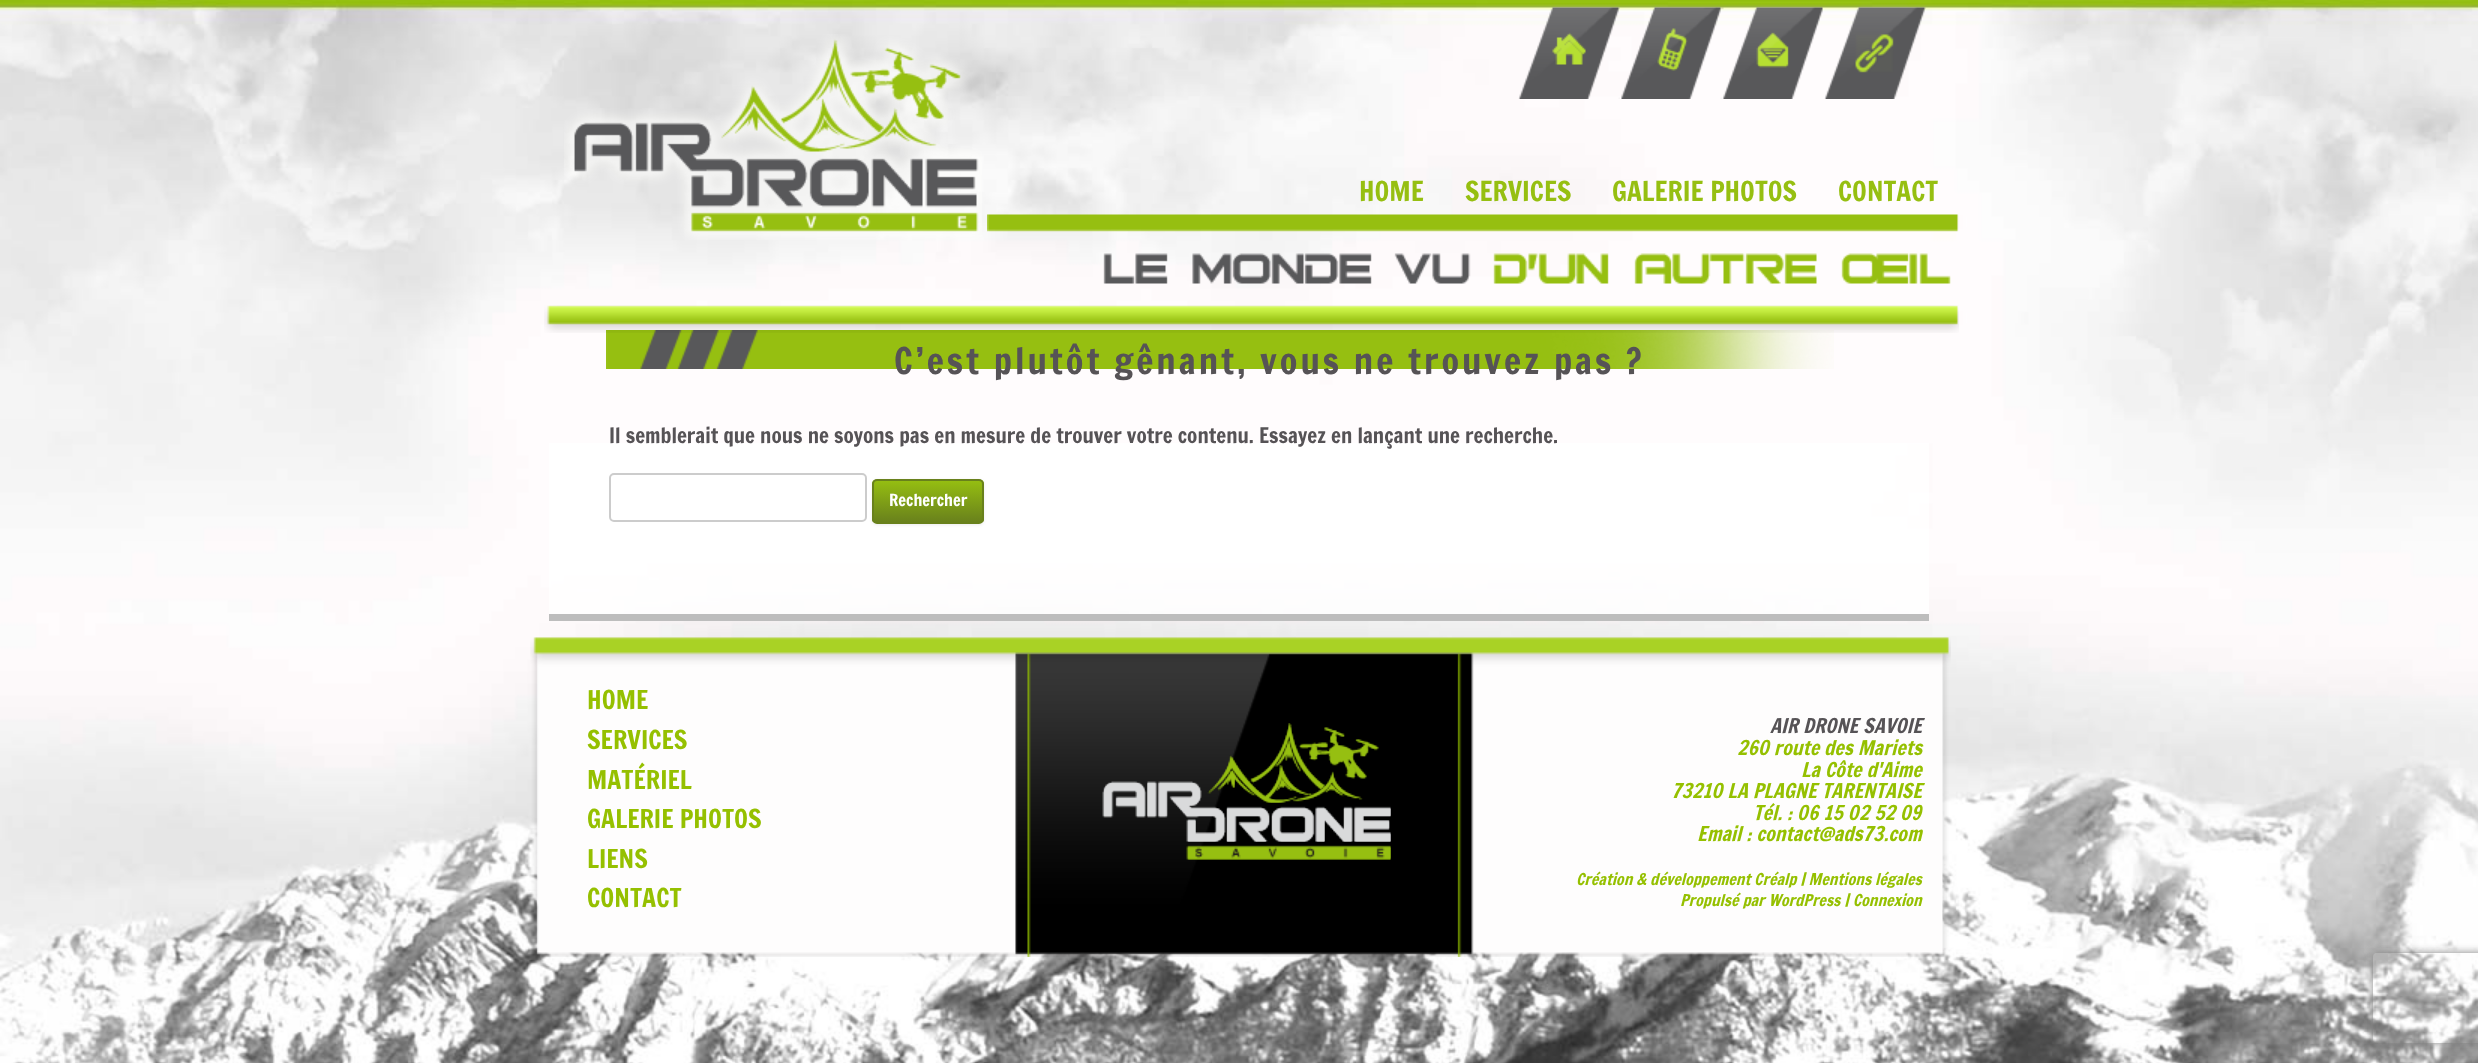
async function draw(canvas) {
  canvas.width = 2478;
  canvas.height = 1063;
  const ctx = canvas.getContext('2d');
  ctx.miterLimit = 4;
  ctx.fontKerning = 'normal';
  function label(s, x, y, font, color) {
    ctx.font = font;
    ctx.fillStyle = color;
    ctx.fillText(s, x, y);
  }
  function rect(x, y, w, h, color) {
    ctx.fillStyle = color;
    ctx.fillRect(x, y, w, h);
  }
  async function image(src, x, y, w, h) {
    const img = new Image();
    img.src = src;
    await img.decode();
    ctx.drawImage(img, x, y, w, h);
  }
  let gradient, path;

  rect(0, 0, 2478, 1063, '#fff');
  await image('assets/img1.png', 0, 0, 2478, 1063);
  await image('assets/img9.png', 606, 330, 1228, 39);
  await image('assets/img2.png', 544, 305, 1415, 28);
  await image('assets/img3.png', 564, 34, 418, 206);
  await image('assets/img4.png', 1518, 7, 102, 92);
  await image('assets/img5.png', 1621, 7, 101, 92);
  await image('assets/img6.png', 1722, 7, 101, 92);
  await image('assets/img7.png', 1824, 7, 102, 92);
  await image('assets/img8.png', 987, 214, 972, 70);
  label('HOME', 1359, 201, '27px Francois One', '#96bf11');
  label('SERVICES', 1465, 201, '27px Francois One', '#96bf11');
  label('GALERIE PHOTOS', 1612, 201, '27px Francois One', '#96bf11');
  label('CONTACT', 1838, 201, '27px Francois One', '#96bf11');
  ctx.letterSpacing = '3px';
  label('C’est plutôt gênant, vous ne trouvez pas ?', 894, 374, '36px Francois One', '#565356');
  rect(549, 443, 1380, 171, '#ffffffcc');
  rect(549, 614, 1380, 7, '#bdbdbd');
  ctx.letterSpacing = '0px';
  label('Il semblerait que nous ne soyons pas en mesure de trouver votre contenu. Essayez en lançant une recherche.', 609, 443, '21px Francois One', '#565356');
  ctx.beginPath();
  ctx.roundRect(610, 474, 256, 47, 4);
  ctx.strokeStyle = '#ccc';
  ctx.lineWidth = 2;
  ctx.stroke();
  ctx.fillStyle = '#4040401a';
  ctx.filter = 'blur(1.5px)';
  ctx.beginPath();
  ctx.roundRect(872, 480, 112, 45, 5);
  ctx.fill();
  ctx.filter = 'none';
  ctx.save();
  ctx.beginPath();
  ctx.roundRect(872, 479, 112, 45, 5);
  ctx.clip();
  gradient = ctx.createLinearGradient(928, 480, 928, 522);
  gradient.addColorStop(0, '#96bf11');
  gradient.addColorStop(1, '#69811c');
  ctx.fillStyle = gradient;
  ctx.fillRect(872, 480, 112, 42);
  ctx.restore();
  ctx.beginPath();
  ctx.roundRect(873, 480, 110, 43, 4);
  ctx.strokeStyle = '#69811c';
  ctx.stroke();
  label('Rechercher', 889, 506, '16.5px Francois One', '#fff');
  await image('assets/img10.png', 530, 637, 1421, 320);
  label('HOME', 587, 709, '25.5px Francois One', '#95c000');
  label('SERVICES', 587, 749, '25.5px Francois One', '#95c000');
  label('MATÉRIEL', 587, 789, '25.5px Francois One', '#95c000');
  label('GALERIE PHOTOS', 587, 828, '25.5px Francois One', '#95c000');
  label('LIENS', 587, 868, '25.5px Francois One', '#95c000');
  label('CONTACT', 587, 907, '25.5px Francois One', '#95c000');
  await image('assets/img11.png', 1102, 723, 289, 137);
  await image('assets/img12.png', 1102, 723, 289, 137);
  label('AIR DRONE SAVOIE', 1770, 733, 'italic 20px Francois One', '#565356');
  label('260 route des Mariets', 1737, 755, 'italic 20px Francois One', '#95c000');
  label('La Côte d\'Aime', 1801, 777, 'italic 20px Francois One', '#95c000');
  label('73210 LA PLAGNE TARENTAISE', 1671, 798, 'italic 20px Francois One', '#95c000');
  label('Tél. : 06 15 02 52 09', 1753, 820, 'italic 20px Francois One', '#95c000');
  label('Email : contact@ads73.com', 1697, 841, 'italic 20px Francois One', '#95c000');
  label('Création & développement Créalp | Mentions légales', 1576, 885, 'italic 16px Francois One', '#95c000');
  label('Propulsé par WordPress | Connexion', 1680, 906, 'italic 16px Francois One', '#95c000');
  ctx.save();
  path = new Path2D('M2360 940H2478V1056H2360ZM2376 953H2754C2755.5 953 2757 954.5 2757 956V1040C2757 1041.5 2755.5 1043 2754 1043H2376C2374.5 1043 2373 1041.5 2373 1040V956C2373 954.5 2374.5 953 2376 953Z');
  ctx.clip(path, 'evenodd');
  ctx.fillStyle = '#808080';
  ctx.filter = 'blur(4px)';
  ctx.beginPath();
  ctx.roundRect(2373, 953, 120, 90, 3);
  ctx.fill();
  ctx.filter = 'none';
  ctx.restore();
}

draw(document.querySelector('canvas'));
